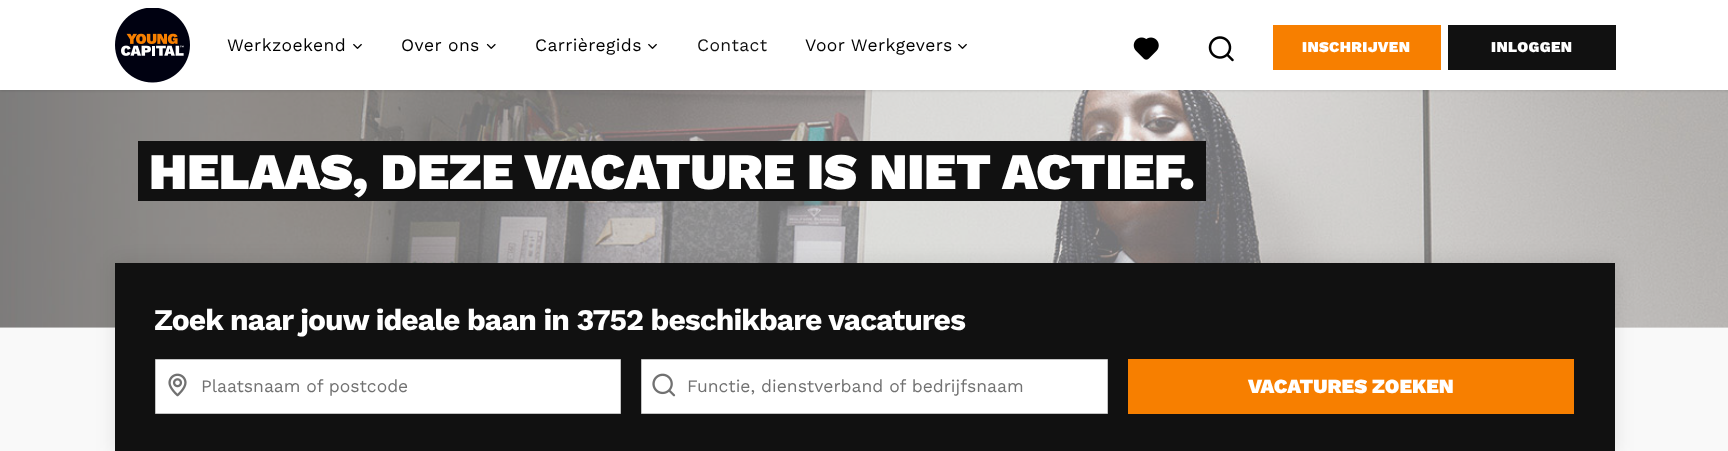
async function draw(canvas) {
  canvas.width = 1728;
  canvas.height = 451;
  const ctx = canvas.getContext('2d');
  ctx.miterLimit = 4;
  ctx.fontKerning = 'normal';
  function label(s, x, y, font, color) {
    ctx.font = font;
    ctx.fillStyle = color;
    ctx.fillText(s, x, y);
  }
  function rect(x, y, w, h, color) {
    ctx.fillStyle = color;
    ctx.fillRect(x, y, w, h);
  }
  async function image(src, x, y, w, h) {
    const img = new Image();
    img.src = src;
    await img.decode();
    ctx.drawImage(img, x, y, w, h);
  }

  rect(0, 0, 1728, 451, '#f9f9f9');
  rect(0, 90, 1728, 238, '#ececed');
  await image('assets/img6.png', 0, 90, 1728, 238);
  ctx.fillStyle = '#0000001a';
  ctx.filter = 'blur(1px)';
  ctx.beginPath();
  ctx.rect(0, 1, 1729, 90);
  ctx.fill();
  ctx.filter = 'none';
  rect(0, 0, 1728, 90, '#fff');
  await image('assets/img1.png', 115, 8, 75, 75);
  ctx.letterSpacing = '0.4px';
  label('Werkzoekend', 227, 51, '17.5px Work Sans', '#000');
  await image('assets/img2.png', 353, 43, 9, 6);
  label('Over ons', 401, 51, '17.5px Work Sans', '#000');
  await image('assets/img3.png', 486, 43, 10, 6);
  label('Carrièregids', 535, 51, '17.5px Work Sans', '#000');
  await image('assets/img2.png', 648, 43, 9, 6);
  label('Contact', 697, 51, '17.5px Work Sans', '#111');
  label('Voor Werkgevers', 805, 51, '17.5px Work Sans', '#000');
  await image('assets/img2.png', 958, 43, 9, 6);
  await image('assets/img4.png', 1133, 37, 26, 23);
  await image('assets/img5.png', 1208, 36, 26, 26);
  rect(1273, 25, 168, 45, '#f77f00');
  label('INSCHRIJVEN', 1302, 52, '900 15px Work Sans', '#fff');
  rect(1448, 25, 168, 45, '#111');
  label('INLOGGEN', 1491, 52, '900 15px Work Sans', '#fff');
  rect(138, 141, 1068, 60, '#111');
  ctx.letterSpacing = '-0.25px';
  label('HELAAS, DEZE VACATURE IS NIET ACTIEF.', 149, 189, '900 51.25px Work Sans', '#fff');
  ctx.fillStyle = '#0000001a';
  ctx.filter = 'blur(9.5px)';
  ctx.beginPath();
  ctx.rect(115, 263, 1500, 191);
  ctx.fill();
  ctx.filter = 'none';
  rect(115, 263, 1500, 188, '#111');
  ctx.letterSpacing = '-0.95px';
  label('Zoek naar jouw ideale baan in 3752 beschikbare vacatures', 154, 330, 'bold 30px Work Sans', '#fff');
  ctx.beginPath();
  ctx.rect(155.5, 359.5, 465, 54);
  ctx.fill();
  ctx.strokeStyle = '#c3c3c3';
  ctx.stroke();
  await image('assets/img7.png', 168, 373, 19, 24);
  ctx.letterSpacing = '0px';
  label('Plaatsnaam of postcode', 201, 392, '17.5px Work Sans', '#717171');
  ctx.fillStyle = '#fff';
  ctx.beginPath();
  ctx.rect(641.5, 359.5, 466, 54);
  ctx.fill();
  ctx.stroke();
  await image('assets/img8.png', 652, 373, 24, 24);
  label('Functie, dienstverband of bedrijfsnaam', 687, 392, '17.5px Work Sans', '#717171');
  rect(1128, 359, 446, 55, '#f77f00');
  label('VACATURES ZOEKEN', 1248, 393, '900 20px Work Sans', '#fff');
}

draw(document.querySelector('canvas'));
